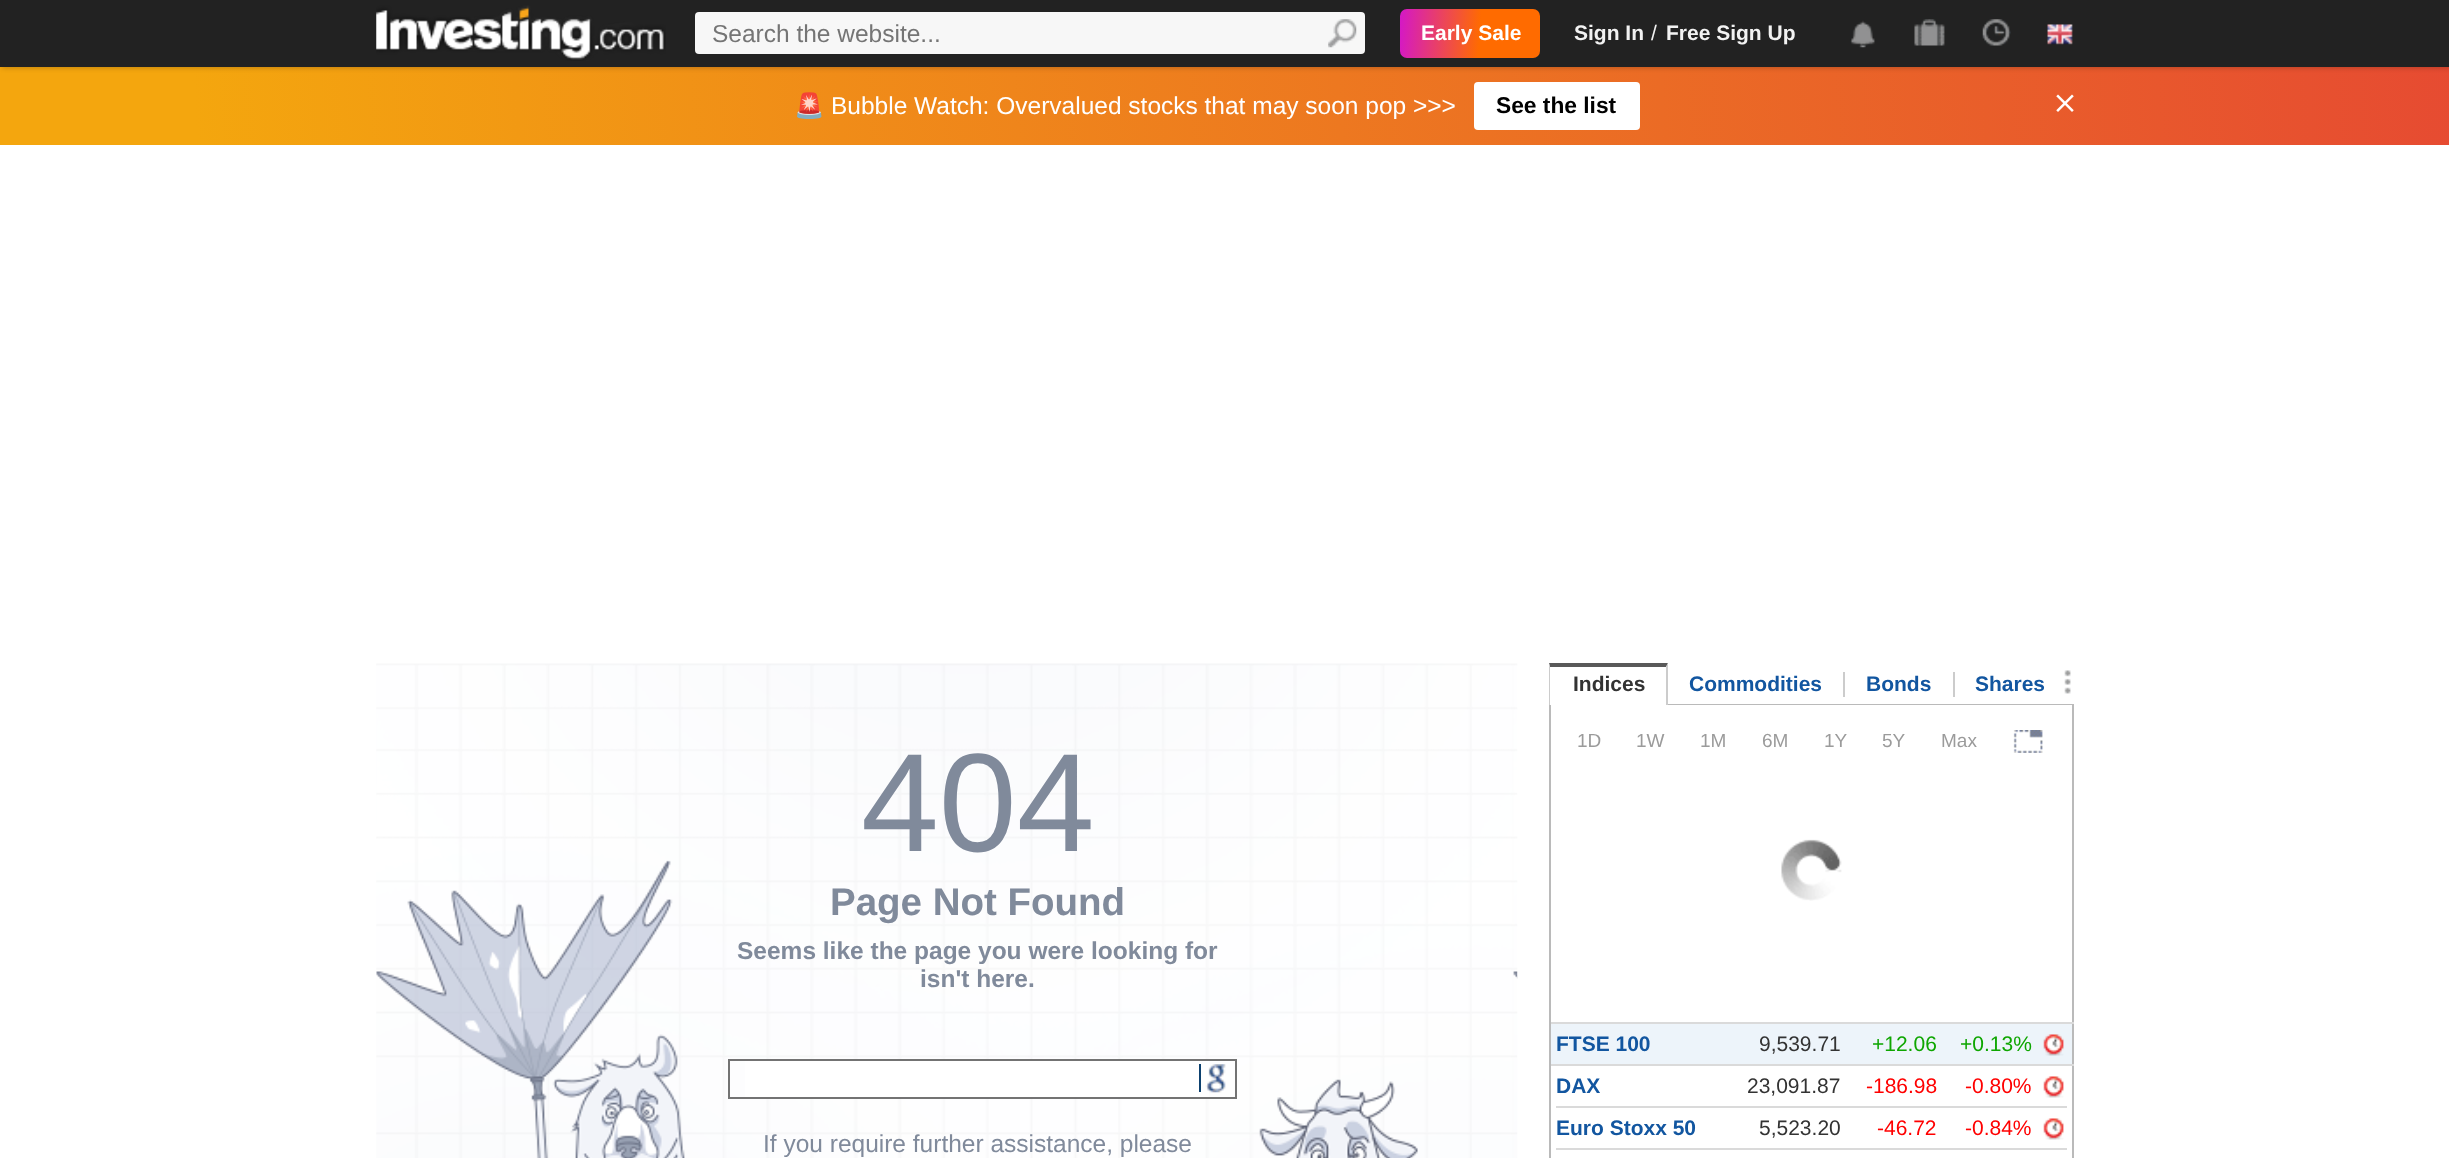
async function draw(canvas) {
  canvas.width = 2449;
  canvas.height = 1158;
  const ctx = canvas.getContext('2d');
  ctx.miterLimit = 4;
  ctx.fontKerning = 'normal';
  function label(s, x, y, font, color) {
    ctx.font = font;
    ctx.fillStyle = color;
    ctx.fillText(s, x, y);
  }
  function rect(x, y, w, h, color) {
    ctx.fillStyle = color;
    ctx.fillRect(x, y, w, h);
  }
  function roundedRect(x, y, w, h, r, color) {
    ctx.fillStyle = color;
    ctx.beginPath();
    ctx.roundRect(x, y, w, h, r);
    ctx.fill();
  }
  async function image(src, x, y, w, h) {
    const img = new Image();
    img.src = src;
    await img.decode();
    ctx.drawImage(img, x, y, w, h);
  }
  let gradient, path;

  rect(0, 0, 2449, 1158, '#fff');
  gradient = ctx.createLinearGradient(3.2, 191, 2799, -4.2);
  gradient.addColorStop(0.07, '#f4a60e');
  gradient.addColorStop(1, '#e43d37');
  ctx.fillStyle = gradient;
  ctx.fillRect(0, 67, 2449, 78);
  ctx.fillStyle = '#00000033';
  ctx.filter = 'blur(2.5px)';
  ctx.beginPath();
  ctx.rect(2, 2, 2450, 66);
  ctx.fill();
  ctx.filter = 'none';
  rect(0, 0, 2449, 67, '#222');
  await image('assets/img1.png', 376, 5, 290, 56);
  roundedRect(695, 12, 670, 42, 4, '#f7f7f7');
  label('Search the website...', 712, 42, '24.5px Liberation Sans', '#757575');
  await image('assets/img2.png', 1328, 19, 29, 29);
  gradient = ctx.createLinearGradient(1541, 38, 1376, 27);
  gradient.addColorStop(0.37, '#ff6b00');
  gradient.addColorStop(1, '#c800ff');
  ctx.fillStyle = gradient;
  ctx.beginPath();
  ctx.roundRect(1400, 9, 140, 49, 7);
  ctx.fill();
  label('Early Sale', 1421, 40, 'bold 21px Liberation Sans', '#fff');
  label('Sign In', 1574, 40, 'bold 21px Liberation Sans', '#f2f2f2');
  label('/', 1651, 40, '21px Liberation Sans', '#f2f2f2');
  label('Free Sign Up', 1666, 40, 'bold 21px Liberation Sans', '#f2f2f2');
  await image('assets/img3.png', 1850, 20, 25, 28);
  await image('assets/img4.png', 1914, 19, 31, 27);
  await image('assets/img5.png', 1982, 19, 29, 27);
  await image('assets/img6.png', 2047, 24, 26, 21);
  label('🚨', 794, 114, '24.5px Noto Color Emoji', '#fff');
  label('Bubble Watch: Overvalued stocks that may soon pop >>>', 831, 114, '24.5px Liberation Sans', '#fff');
  roundedRect(1474, 82, 166, 48, 4, '#fff');
  label('See the list', 1496, 113, 'bold 22.75px Liberation Sans', '#000');
  await image('assets/img7.png', 2056, 94, 18, 18);
  await image('assets/img8.png', 376, 663, 1142, 495);
  label('404', 861, 851, '140px Liberation Sans', '#808a9b');
  label('Page Not Found', 830, 915, 'bold 38.5px Liberation Sans', '#808a9b');
  label('Seems like the page you were looking for', 737, 959, 'bold 24.5px Liberation Sans', '#808a9b');
  label('isn\'t here.', 920, 987, 'bold 24.5px Liberation Sans', '#808a9b');
  rect(745, 1061, 464, 36, '#fff');
  ctx.strokeStyle = '#737373';
  ctx.lineWidth = 2;
  ctx.strokeRect(729, 1060, 507, 38);
  await image('assets/img9.png', 1205, 1064, 21, 29);
  rect(1199, 1064, 2, 28, '#0d416f');
  label('If you require further assistance, please', 763, 1152, '24.5px Liberation Sans', '#808a9b');
  rect(1668, 704, 406, 1, '#bababa');
  ctx.fillStyle = '#595959';
  path = new Path2D('M1549 663H1668L1666 667H1550Z');
  ctx.fill(path);
  ctx.fillStyle = '#ccc';
  path = new Path2D('M1668 663V705H1666V667Z');
  ctx.fill(path);
  path = new Path2D('M1549 705V663L1550 667V705Z');
  ctx.fill(path);
  label('Indices', 1573, 691, 'bold 21px Liberation Sans', '#333');
  label('Commodities', 1689, 691, 'bold 21px Liberation Sans', '#1256a0');
  rect(1843, 672, 2, 25, '#ccc');
  label('Bonds', 1866, 691, 'bold 21px Liberation Sans', '#1256a0');
  rect(1953, 672, 2, 25, '#ccc');
  label('Shares', 1975, 691, 'bold 21px Liberation Sans', '#1256a0');
  await image('assets/img10.png', 2064, 670, 7, 24);
  rect(2072, 705, 2, 453, '#bababa');
  rect(1549, 705, 2, 453, '#bababa');
  label('1D', 1577, 747, '19px Liberation Sans', '#9b9b9b');
  label('1W', 1636, 747, '19px Liberation Sans', '#9b9b9b');
  label('1M', 1700, 747, '19px Liberation Sans', '#9b9b9b');
  label('6M', 1762, 747, '19px Liberation Sans', '#9b9b9b');
  label('1Y', 1824, 747, '19px Liberation Sans', '#9b9b9b');
  label('5Y', 1882, 747, '19px Liberation Sans', '#9b9b9b');
  label('Max', 1941, 747, '19px Liberation Sans', '#9b9b9b');
  await image('assets/img11.png', 2013, 730, 30, 23);
  await image('assets/img12.png', 1781, 839, 61, 62);
  rect(1551, 1024, 521, 40, '#edf4fa');
  rect(1551, 1022, 523, 2, '#dadada');
  rect(1551, 1064, 523, 2, '#dadada');
  label('FTSE 100', 1556, 1051, 'bold 21px Liberation Sans', '#1256a0');
  label('9,539.71', 1759, 1051, '21px Liberation Sans', '#333');
  label('+12.06', 1872, 1051, '21px Liberation Sans', '#0ea600');
  label('+0.13%', 1960, 1051, '21px Liberation Sans', '#0ea600');
  await image('assets/img13.png', 2043, 1034, 21, 22);
  label('DAX', 1556, 1093, 'bold 21px Liberation Sans', '#1256a0');
  label('23,091.87', 1747, 1093, '21px Liberation Sans', '#333');
  label('-186.98', 1866, 1093, '21px Liberation Sans', '#f00');
  label('-0.80%', 1965, 1093, '21px Liberation Sans', '#f00');
  await image('assets/img14.png', 2043, 1076, 21, 22);
  rect(1556, 1106, 511, 2, '#dadada');
  await image('assets/img14.png', 2043, 1118, 21, 22);
  label('Euro Stoxx 50', 1556, 1135, 'bold 21px Liberation Sans', '#1256a0');
  label('5,523.20', 1759, 1135, '21px Liberation Sans', '#333');
  label('-46.72', 1877, 1135, '21px Liberation Sans', '#f00');
  label('-0.84%', 1965, 1135, '21px Liberation Sans', '#f00');
  rect(1556, 1148, 511, 2, '#dadada');
}

draw(document.querySelector('canvas'));
